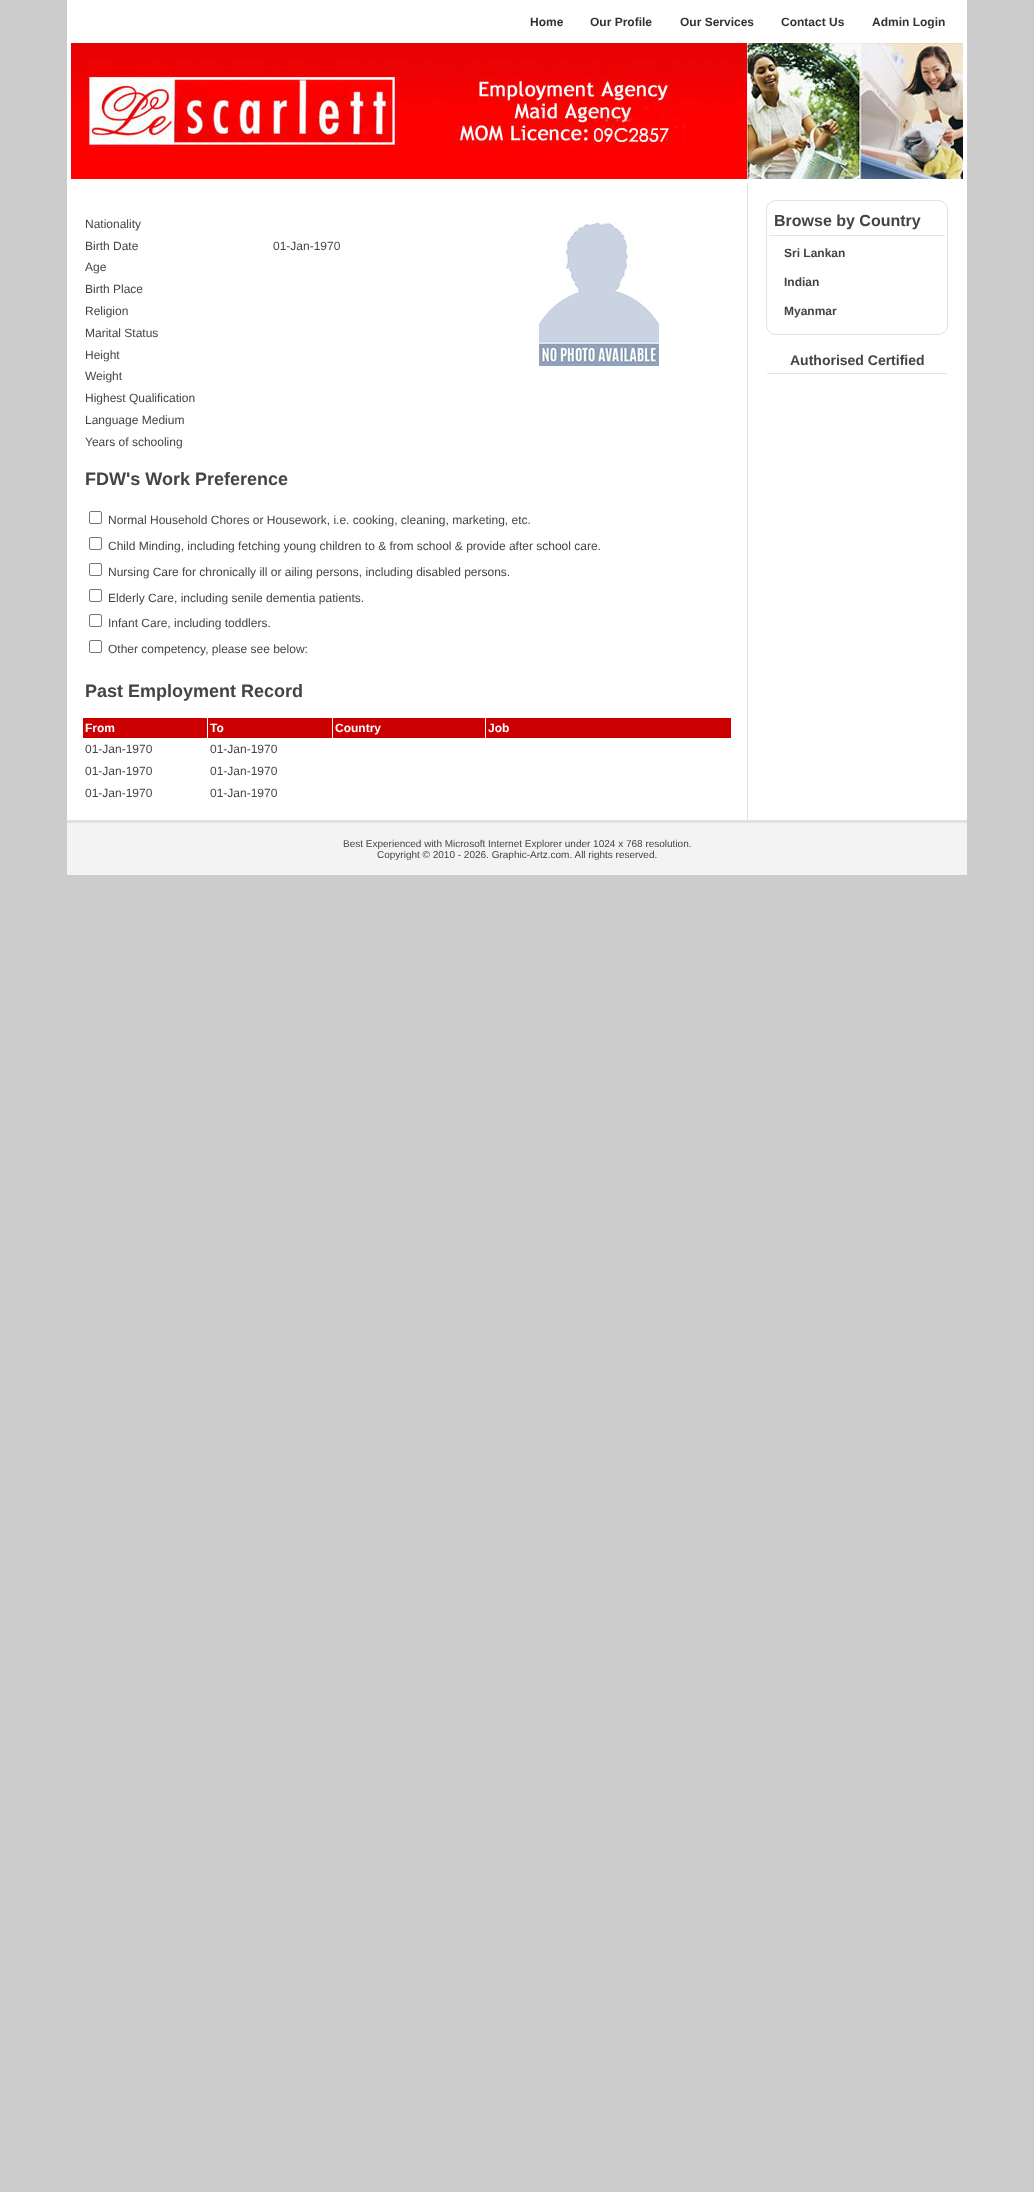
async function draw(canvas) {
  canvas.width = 1034;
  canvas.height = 2192;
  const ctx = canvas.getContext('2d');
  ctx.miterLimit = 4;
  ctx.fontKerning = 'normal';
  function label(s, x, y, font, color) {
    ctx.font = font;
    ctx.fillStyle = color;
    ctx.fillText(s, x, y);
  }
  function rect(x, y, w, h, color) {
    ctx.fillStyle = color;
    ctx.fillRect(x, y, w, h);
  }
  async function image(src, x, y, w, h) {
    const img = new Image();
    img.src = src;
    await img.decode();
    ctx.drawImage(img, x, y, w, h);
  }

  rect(0, 0, 1034, 2192, '#ccc');
  rect(67, 0, 900, 820, '#fff');
  label('Home', 530, 26, 'bold 12px Liberation Sans', '#333');
  label('Our Profile', 590, 26, 'bold 12px Liberation Sans', '#333');
  label('Our Services', 680, 26, 'bold 12px Liberation Sans', '#333');
  label('Contact Us', 781, 26, 'bold 12px Liberation Sans', '#333');
  label('Admin Login', 872, 26, 'bold 12px Liberation Sans', '#333');
  await image('assets/img1.png', 71, 43, 892, 136);
  rect(747, 183, 1, 637, '#e1e1e1');
  label('Nationality', 85, 228, '12px Liberation Sans', '#444');
  await image('assets/img2.png', 539, 218, 120, 148);
  label('Birth Date', 85, 250, '12px Liberation Sans', '#444');
  label('01-Jan-1970', 273, 250, '12px Liberation Sans', '#444');
  label('Age', 85, 271, '12px Liberation Sans', '#444');
  label('Birth Place', 85, 293, '12px Liberation Sans', '#444');
  label('Religion', 85, 315, '12px Liberation Sans', '#444');
  label('Marital Status', 85, 337, '12px Liberation Sans', '#444');
  label('Height', 85, 359, '12px Liberation Sans', '#444');
  label('Weight', 85, 380, '12px Liberation Sans', '#444');
  label('Highest Qualification', 85, 402, '12px Liberation Sans', '#444');
  label('Language Medium', 85, 424, '12px Liberation Sans', '#444');
  label('Years of schooling', 85, 446, '12px Liberation Sans', '#444');
  label('FDW\'s Work Preference', 85, 485, 'bold 18px Liberation Sans', '#444');
  ctx.beginPath();
  ctx.roundRect(89.5, 511.5, 12, 12, 1.5);
  ctx.strokeStyle = '#767676';
  ctx.stroke();
  label('Normal Household Chores or Housework, i.e. cooking, cleaning, marketing, etc.', 108, 524, '12px Liberation Sans', '#444');
  ctx.beginPath();
  ctx.roundRect(89.5, 537.5, 12, 12, 1.5);
  ctx.stroke();
  label('Child Minding, including fetching young children to & from school & provide after school care.', 108, 550, '12px Liberation Sans', '#444');
  ctx.beginPath();
  ctx.roundRect(89.5, 563.5, 12, 12, 1.5);
  ctx.stroke();
  label('Nursing Care for chronically ill or ailing persons, including disabled persons.', 108, 576, '12px Liberation Sans', '#444');
  ctx.beginPath();
  ctx.roundRect(89.5, 589.5, 12, 12, 1.5);
  ctx.stroke();
  label('Elderly Care, including senile dementia patients.', 108, 602, '12px Liberation Sans', '#444');
  ctx.beginPath();
  ctx.roundRect(89.5, 614.5, 12, 12, 1.5);
  ctx.stroke();
  label('Infant Care, including toddlers.', 108, 627, '12px Liberation Sans', '#444');
  ctx.beginPath();
  ctx.roundRect(89.5, 640.5, 12, 12, 1.5);
  ctx.stroke();
  label('Other competency, please see below:', 108, 653, '12px Liberation Sans', '#444');
  label('Past Employment Record', 85, 697, 'bold 18px Liberation Sans', '#444');
  rect(83, 718, 124, 20, '#c00');
  label('From', 85, 732, 'bold 12px Liberation Sans', '#fff');
  rect(208, 718, 124, 20, '#c00');
  label('To', 210, 732, 'bold 12px Liberation Sans', '#fff');
  rect(333, 718, 152, 20, '#c00');
  label('Country', 335, 732, 'bold 12px Liberation Sans', '#fff');
  rect(486, 718, 245, 20, '#c00');
  label('Job', 488, 732, 'bold 12px Liberation Sans', '#fff');
  label('01-Jan-1970', 85, 753, '12px Liberation Sans', '#444');
  label('01-Jan-1970', 210, 753, '12px Liberation Sans', '#444');
  label('01-Jan-1970', 85, 775, '12px Liberation Sans', '#444');
  label('01-Jan-1970', 210, 775, '12px Liberation Sans', '#444');
  label('01-Jan-1970', 85, 797, '12px Liberation Sans', '#444');
  label('01-Jan-1970', 210, 797, '12px Liberation Sans', '#444');
  await image('assets/img3.png', 766, 200, 182, 12);
  rect(766, 212, 1, 111, '#e2e2e2');
  rect(769, 235, 176, 1, '#e5e5e5');
  label('Browse by Country', 774, 226, 'bold 16px Liberation Sans', '#444');
  label('Sri Lankan', 784, 257, 'bold 12px Liberation Sans', '#444');
  label('Indian', 784, 286, 'bold 12px Liberation Sans', '#444');
  label('Myanmar', 784, 315, 'bold 12px Liberation Sans', '#444');
  rect(947, 212, 1, 111, '#e1e1e1');
  await image('assets/img4.png', 766, 323, 182, 12);
  rect(767, 373, 180, 1, '#e5e5e5');
  label('Authorised Certified', 790, 365, 'bold 14px Liberation Sans', '#444');
  rect(67, 823, 900, 52, '#f3f3f3');
  rect(67, 820, 900, 3, '#e1e1e1');
  label('Best Experienced with Microsoft Internet Explorer under 1024 x 768 resolution.', 343, 847, '10px Liberation Sans', '#444');
  label('Copyright © 2010 - 2026. Graphic-Artz.com. All rights reserved.', 377, 858, '10px Liberation Sans', '#444');
}

draw(document.querySelector('canvas'));
